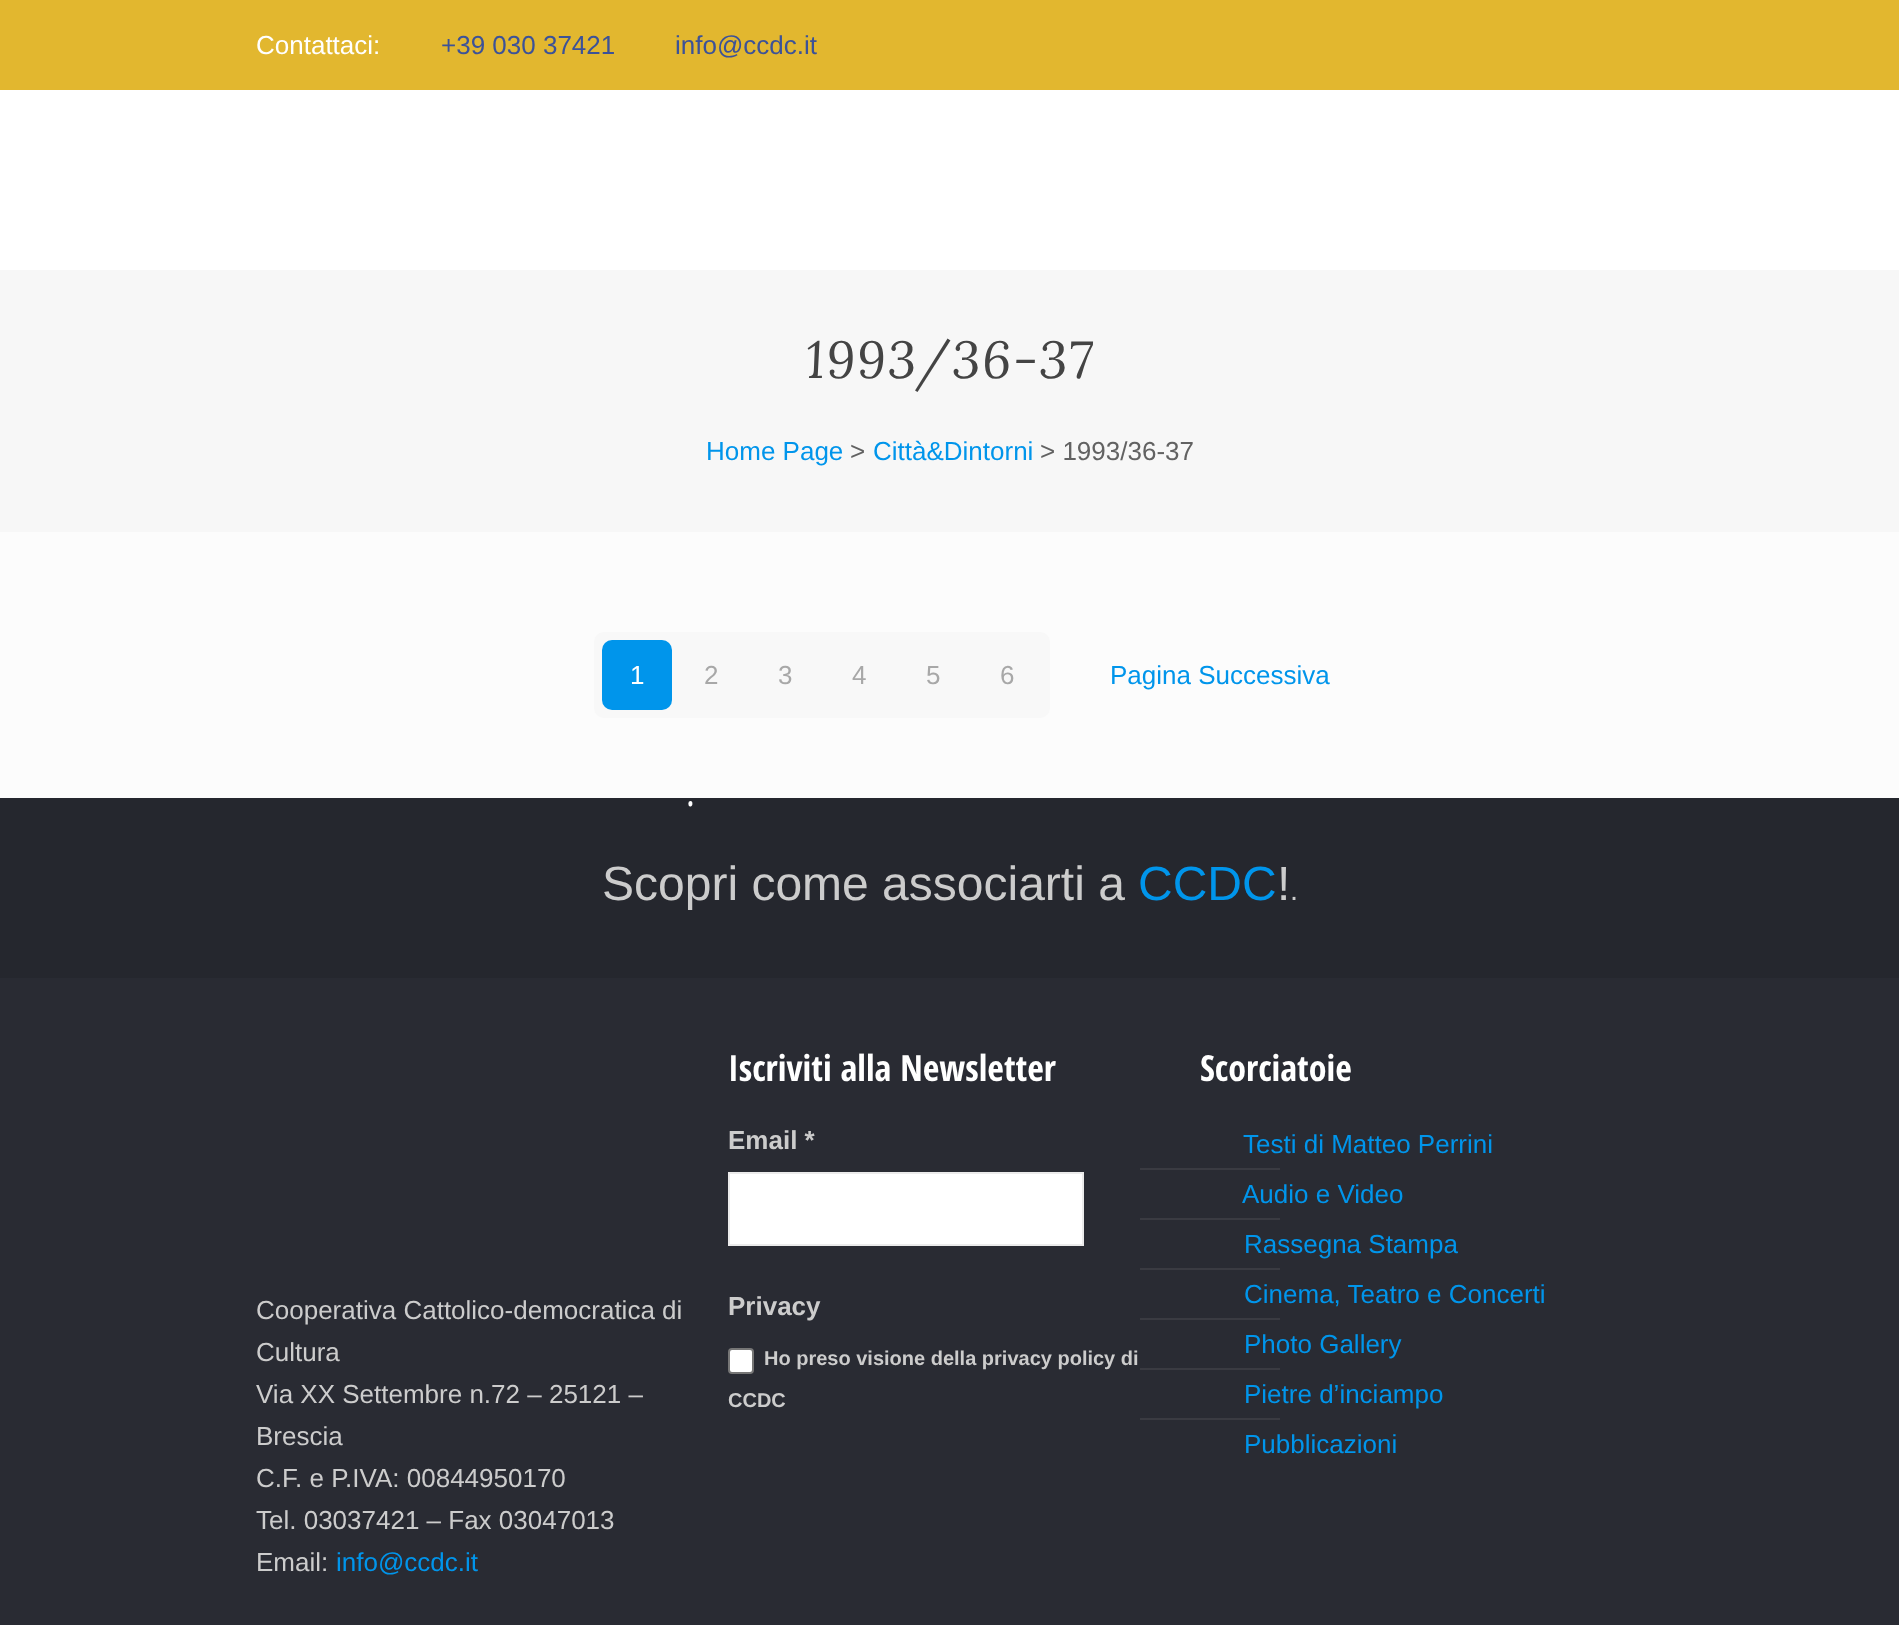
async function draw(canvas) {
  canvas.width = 1899;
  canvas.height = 1625;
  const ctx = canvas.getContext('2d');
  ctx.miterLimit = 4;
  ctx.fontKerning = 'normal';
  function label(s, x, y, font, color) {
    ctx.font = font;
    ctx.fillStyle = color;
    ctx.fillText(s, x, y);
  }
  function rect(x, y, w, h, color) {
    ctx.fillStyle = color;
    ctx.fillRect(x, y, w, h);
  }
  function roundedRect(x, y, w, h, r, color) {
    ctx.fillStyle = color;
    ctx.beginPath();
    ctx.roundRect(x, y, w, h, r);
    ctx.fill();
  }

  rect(0, 0, 1899, 1625, '#fcfcfc');
  rect(0, 0, 1899, 90, '#e2b72f');
  label('Contattaci:', 256, 54, '26px Liberation Sans', '#fff');
  label('+39 030 37421', 441, 54, '26px Liberation Sans', '#3c5298');
  label('info@ccdc.it', 675, 54, '26px Liberation Sans', '#3c5298');
  rect(0, 90, 1899, 180, '#fff');
  rect(0, 270, 1899, 262, '#f7f7f7');
  ctx.letterSpacing = '2px';
  label('1993/36-37', 806, 378, 'italic 52px Lora', '#444');
  ctx.letterSpacing = '0px';
  label('Home Page', 706, 460, '26px Liberation Sans', '#0095eb');
  label('>', 850, 460, '26px Liberation Sans', '#626262');
  label('Città&Dintorni', 873, 460, '26px Liberation Sans', '#0095eb');
  label('> 1993/36-37', 1040, 460, '26px Liberation Sans', '#626262');
  roundedRect(594, 632, 456, 86, 10, '#f8f8f8');
  roundedRect(602, 640, 70, 70, 10, '#0095eb');
  label('1', 630, 684, '26px Liberation Sans', '#fff');
  label('2', 704, 684, '26px Liberation Sans', '#a8a8a8');
  label('3', 778, 684, '26px Liberation Sans', '#a8a8a8');
  label('4', 852, 684, '26px Liberation Sans', '#a8a8a8');
  label('5', 926, 684, '26px Liberation Sans', '#a8a8a8');
  label('6', 1000, 684, '26px Liberation Sans', '#a8a8a8');
  label('Pagina Successiva', 1110, 684, '26px Liberation Sans', '#0095eb');
  rect(0, 798, 1899, 180, '#25272e');
  label('.', 685, 806, '300 52px Open Sans Condensed', '#fff');
  rect(0, 978, 1899, 647, '#292b33');
  label('Scopri come associarti a', 602, 900, '48px Liberation Sans', '#ccc');
  label('CCDC', 1138, 900, '48px Liberation Sans', '#0095eb');
  label('!', 1277, 900, '48px Liberation Sans', '#ccc');
  label('.', 1290, 900, '29px Liberation Sans', '#ccc');
  label('Cooperativa Cattolico-democratica di', 256, 1319, '26px Liberation Sans', '#ccc');
  label('Cultura', 256, 1361, '26px Liberation Sans', '#ccc');
  label('Via XX Settembre n.72 – 25121 –', 256, 1403, '26px Liberation Sans', '#ccc');
  label('Brescia', 256, 1445, '26px Liberation Sans', '#ccc');
  label('C.F. e P.IVA: 00844950170', 256, 1487, '26px Liberation Sans', '#ccc');
  label('Tel. 03037421 – Fax 03047013', 256, 1529, '26px Liberation Sans', '#ccc');
  label('Email:', 256, 1571, '26px Liberation Sans', '#ccc');
  label('info@ccdc.it', 336, 1571, '26px Liberation Sans', '#0095eb');
  label('Iscriviti alla Newsletter', 728, 1081, 'bold 36px Open Sans Condensed', '#fff');
  label('Email *', 728, 1149, 'bold 26px Liberation Sans', '#ccc');
  ctx.fillStyle = '#fff';
  ctx.beginPath();
  ctx.rect(729, 1173, 354, 72);
  ctx.fill();
  ctx.strokeStyle = '#ebebeb';
  ctx.lineWidth = 2;
  ctx.stroke();
  label('Privacy', 728, 1315, 'bold 26px Liberation Sans', '#ccc');
  ctx.fillStyle = '#fff';
  ctx.beginPath();
  ctx.roundRect(729, 1349, 24, 24, 3);
  ctx.fill();
  ctx.strokeStyle = '#767676';
  ctx.stroke();
  label('Ho preso visione della privacy policy di', 764, 1365, 'bold 20px Liberation Sans', '#ccc');
  label('CCDC', 728, 1407, 'bold 20px Liberation Sans', '#ccc');
  label('Scorciatoie', 1200, 1081, 'bold 36px Open Sans Condensed', '#fff');
  label('Testi di Matteo Perrini', 1243, 1153, '26px Liberation Sans', '#0095eb');
  rect(1140, 1168, 140, 2, '#3a3b42');
  label('Audio e Video', 1242, 1203, '26px Liberation Sans', '#0095eb');
  rect(1140, 1218, 140, 2, '#3a3b42');
  label('Rassegna Stampa', 1244, 1253, '26px Liberation Sans', '#0095eb');
  rect(1140, 1268, 140, 2, '#3a3b42');
  label('Cinema, Teatro e Concerti', 1244, 1303, '26px Liberation Sans', '#0095eb');
  rect(1140, 1318, 140, 2, '#3a3b42');
  label('Photo Gallery', 1244, 1353, '26px Liberation Sans', '#0095eb');
  rect(1140, 1368, 140, 2, '#3a3b42');
  label('Pietre d’inciampo', 1244, 1403, '26px Liberation Sans', '#0095eb');
  rect(1140, 1418, 140, 2, '#3a3b42');
  label('Pubblicazioni', 1244, 1453, '26px Liberation Sans', '#0095eb');
}

draw(document.querySelector('canvas'));
